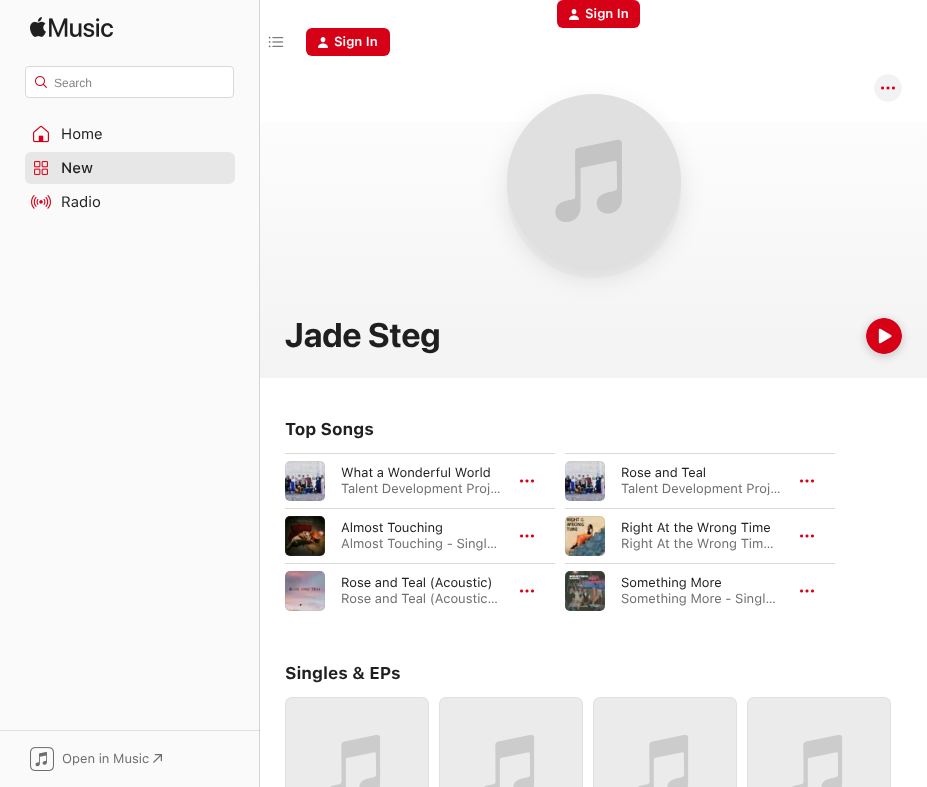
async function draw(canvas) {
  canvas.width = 927;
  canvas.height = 787;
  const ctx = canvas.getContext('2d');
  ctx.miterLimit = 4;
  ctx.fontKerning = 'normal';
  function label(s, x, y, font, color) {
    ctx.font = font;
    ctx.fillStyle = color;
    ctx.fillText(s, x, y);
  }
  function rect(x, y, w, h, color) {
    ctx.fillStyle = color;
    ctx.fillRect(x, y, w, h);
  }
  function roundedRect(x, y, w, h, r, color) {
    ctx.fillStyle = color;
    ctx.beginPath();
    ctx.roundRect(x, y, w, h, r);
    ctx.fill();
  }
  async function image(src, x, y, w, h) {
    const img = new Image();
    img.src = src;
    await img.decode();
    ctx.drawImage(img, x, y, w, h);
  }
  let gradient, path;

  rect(0, 0, 927, 787, '#fff');
  roundedRect(557, 0, 83, 28, 6, '#d60017');
  await image('assets/img1.png', 569, 9, 10, 11);
  label('Sign In', 585, 18, '600 13px SF', '#fff');
  await image('assets/img2.png', 268, 36, 16, 12);
  roundedRect(306, 28, 84, 28, 6, '#d60017');
  await image('assets/img1.png', 318, 37, 10, 11);
  label('Sign In', 334, 46, '600 13px SF', '#fff');
  rect(0, 0, 259, 787, '#fafafa');
  rect(0, 730, 260, 1, '#e1e1e1');
  rect(259, 0, 1, 787, '#d5d5d5');
  rect(259, 730, 1, 1, '#c0c0c0');
  await image('assets/img3.png', 30, 17, 83, 20);
  ctx.fillStyle = '#fff';
  ctx.beginPath();
  ctx.roundRect(25.5, 66.5, 208, 31, 3.5);
  ctx.fill();
  ctx.strokeStyle = '#d9d9d9';
  ctx.stroke();
  await image('assets/img4.png', 35, 76, 12, 12);
  label('Search', 54, 87, '12px Liberation Sans', '#858585');
  await image('assets/img5.png', 33, 125, 16, 18);
  label('Home', 61, 139, '15px SF', '#1f1f1f');
  roundedRect(25, 152, 210, 32, 6, '#e7e7e8');
  await image('assets/img6.png', 34, 161, 14, 14);
  label('New', 61, 173, '500 15px SF', '#1f1f1f');
  await image('assets/img7.png', 31, 195, 20, 14);
  label('Radio', 61, 207, '15px SF', '#1f1f1f');
  await image('assets/img8.png', 30, 747, 24, 24);
  label('Open in Music', 62, 763, '13px SF', '#707070');
  await image('assets/img9.png', 153, 754, 9, 9);
  gradient = ctx.createLinearGradient(594, 54, 594, 378);
  gradient.addColorStop(0, '#fff');
  gradient.addColorStop(1, '#f3f3f3');
  ctx.fillStyle = gradient;
  ctx.fillRect(260, 122, 667, 256);
  ctx.fillStyle = '#0000001a';
  ctx.filter = 'blur(12.5px)';
  ctx.beginPath();
  ctx.roundRect(507, 104, 174, 174, 87);
  ctx.fill();
  ctx.filter = 'none';
  await image('assets/img11.png', 508, 194, 172, 39);
  ctx.fillStyle = '#8080800a';
  path = new Path2D('M594 104C642 104 681 143 681 191C681 239 642 278 594 278C546 278 507 239 507 191C507 143 546 104 594 104Z');
  ctx.fill(path);
  ctx.fillStyle = '#ebebeb';
  ctx.beginPath();
  ctx.arc(594, 181, 87, 0, 2 * Math.PI);
  ctx.fill();
  await image('assets/img10.png', 555, 139, 67, 83);
  ctx.fillStyle = '#8080801a';
  path = new Path2D('M594 94C642 94 681 133 681 181C681 229 642 268 594 268C546 268 507 229 507 181C507 133 546 94 594 94Z');
  ctx.fill(path);
  await image('assets/img12.png', 874, 74, 28, 28);
  label('Jade Steg', 285, 347, 'bold 34px "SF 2"', '#1f1f1f');
  ctx.fillStyle = '#00000033';
  ctx.filter = 'blur(5px)';
  ctx.beginPath();
  ctx.roundRect(866, 320, 36, 36, 18);
  ctx.fill();
  ctx.filter = 'none';
  await image('assets/img13.png', 866, 318, 36, 36);
  label('Top Songs', 285, 435, 'bold 17px SF', '#1f1f1f');
  rect(285, 453, 270, 1, '#d9d9d9');
  await image('assets/img14.png', 285, 461, 40, 40);
  ctx.beginPath();
  ctx.roundRect(285.5, 461.5, 39, 39, 4.5);
  ctx.strokeStyle = '#8080801a';
  ctx.stroke();
  label('What a Wonderful World', 341, 477, '13px SF', '#1f1f1f');
  label('Talent Development Proj…', 341, 493, '13px SF', '#707070');
  await image('assets/img15.png', 520, 479, 14, 4);
  rect(565, 453, 270, 1, '#d9d9d9');
  await image('assets/img16.png', 565, 461, 40, 40);
  ctx.beginPath();
  ctx.roundRect(565.5, 461.5, 39, 39, 4.5);
  ctx.stroke();
  label('Rose and Teal', 621, 477, '13px SF', '#1f1f1f');
  label('Talent Development Proj…', 621, 493, '13px SF', '#707070');
  await image('assets/img15.png', 800, 479, 14, 4);
  rect(285, 508, 270, 1, '#d9d9d9');
  await image('assets/img17.png', 285, 516, 40, 40);
  ctx.beginPath();
  ctx.roundRect(285.5, 516.5, 39, 39, 4.5);
  ctx.stroke();
  label('Almost Touching', 341, 532, '13px SF', '#1f1f1f');
  label('Almost Touching - Singl…', 341, 548, '13px SF', '#707070');
  await image('assets/img15.png', 520, 534, 14, 4);
  rect(565, 508, 270, 1, '#d9d9d9');
  await image('assets/img18.png', 565, 516, 40, 40);
  ctx.beginPath();
  ctx.roundRect(565.5, 516.5, 39, 39, 4.5);
  ctx.stroke();
  label('Right At the Wrong Time', 621, 532, '13px SF', '#1f1f1f');
  label('Right At the Wrong Tim…', 621, 548, '13px SF', '#707070');
  await image('assets/img15.png', 800, 534, 14, 4);
  rect(285, 563, 270, 1, '#d9d9d9');
  await image('assets/img19.png', 285, 571, 40, 40);
  ctx.beginPath();
  ctx.roundRect(285.5, 571.5, 39, 39, 4.5);
  ctx.stroke();
  label('Rose and Teal (Acoustic)', 341, 587, '13px SF', '#1f1f1f');
  label('Rose and Teal (Acoustic…', 341, 603, '13px SF', '#707070');
  await image('assets/img15.png', 520, 589, 14, 4);
  rect(565, 563, 270, 1, '#d9d9d9');
  await image('assets/img20.png', 565, 571, 40, 40);
  ctx.beginPath();
  ctx.roundRect(565.5, 571.5, 39, 39, 4.5);
  ctx.stroke();
  label('Something More', 621, 587, '13px SF', '#1f1f1f');
  label('Something More - Singl…', 621, 603, '13px SF', '#707070');
  await image('assets/img15.png', 800, 589, 14, 4);
  label('Singles & EPs', 285, 679, 'bold 17px SF', '#1f1f1f');
  await image('assets/img21.png', 285, 697, 144, 90);
  ctx.beginPath();
  ctx.roundRect(285.5, 697.5, 143, 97, 6.5);
  ctx.stroke();
  await image('assets/img22.png', 439, 697, 144, 90);
  ctx.beginPath();
  ctx.roundRect(439.5, 697.5, 143, 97, 6.5);
  ctx.stroke();
  await image('assets/img23.png', 593, 697, 144, 90);
  ctx.beginPath();
  ctx.roundRect(593.5, 697.5, 143, 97, 6.5);
  ctx.stroke();
  await image('assets/img24.png', 747, 697, 144, 90);
  ctx.beginPath();
  ctx.roundRect(747.5, 697.5, 143, 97, 6.5);
  ctx.stroke();
}

draw(document.querySelector('canvas'));
